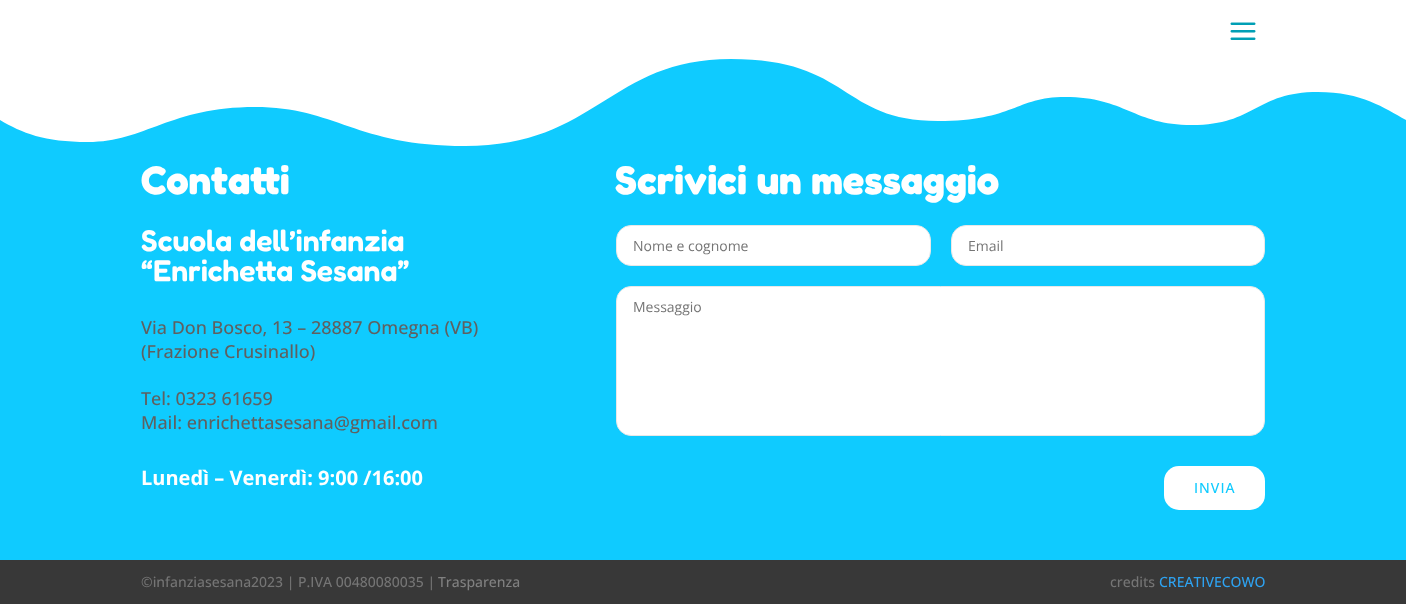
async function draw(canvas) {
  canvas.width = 1406;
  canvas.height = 604;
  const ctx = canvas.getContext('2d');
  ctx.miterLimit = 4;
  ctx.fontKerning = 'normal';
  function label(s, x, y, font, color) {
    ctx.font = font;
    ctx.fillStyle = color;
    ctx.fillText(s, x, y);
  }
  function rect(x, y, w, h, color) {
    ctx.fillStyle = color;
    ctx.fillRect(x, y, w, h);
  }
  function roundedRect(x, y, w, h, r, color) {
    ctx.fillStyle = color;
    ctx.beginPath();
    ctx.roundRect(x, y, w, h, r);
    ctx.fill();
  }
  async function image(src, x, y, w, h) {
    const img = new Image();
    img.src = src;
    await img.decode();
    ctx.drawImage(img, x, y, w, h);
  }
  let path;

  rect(0, 0, 1406, 604, '#fff');
  await image('assets/img1.png', 1230, 22, 26, 18);
  rect(601, 59, 773, 44, '#0fcbff');
  rect(0, 103, 1406, 457, '#0fcbff');
  ctx.fillStyle = '#fff';
  path = new Path2D('M0 49V120C22 133 44 142 88 142C145 142 170 107 255 107C336 107 355 146 465 146C597 146 609 59 731 59C851 59 840 121 938 121C1015 121 1015 97 1065 97C1126 97 1133 125 1192 125C1256 125 1255 92 1318 92C1362 92 1384 108 1406 120V49Z');
  ctx.fill(path);
  label('Contatti', 141, 194, '300 40px Fredoka', '#fff');
  label('Scuola dell’infanzia', 141, 251, '600 30px Fredoka', '#fff');
  label('“Enrichetta Sesana”', 141, 281, '600 30px Fredoka', '#fff');
  label('Via Don Bosco, 13 – 28887 Omegna (VB)', 141, 334, '500 18px Open Sans', '#606060');
  label('(Frazione Crusinallo)', 141, 358, '500 18px Open Sans', '#606060');
  label('Tel: 0323 61659', 141, 405, '500 18px Open Sans', '#606060');
  label('Mail: enrichettasesana@gmail.com', 141, 429, '500 18px Open Sans', '#606060');
  label('Lunedì – Venerdì: 9:00 /16:00', 141, 485, 'bold 20px Open Sans', '#fff');
  label('Scrivici un messaggio', 615, 194, '300 40px Fredoka', '#fff');
  ctx.beginPath();
  ctx.roundRect(616.5, 225.5, 314, 40, 14.5);
  ctx.fill();
  ctx.strokeStyle = '#e8e8e8';
  ctx.stroke();
  label('Nome e cognome', 633, 251, '14px Open Sans', '#757575');
  ctx.fillStyle = '#fff';
  ctx.beginPath();
  ctx.roundRect(951.5, 225.5, 313, 40, 14.5);
  ctx.fill();
  ctx.stroke();
  label('Email', 968, 251, '14px Open Sans', '#757575');
  ctx.fillStyle = '#fff';
  ctx.beginPath();
  ctx.roundRect(616.5, 286.5, 648, 149, 14.5);
  ctx.fill();
  ctx.stroke();
  label('Messaggio', 633, 312, '14px Open Sans', '#757575');
  roundedRect(1164, 466, 101, 44, 15, '#fff');
  ctx.letterSpacing = '1px';
  label('INVIA', 1194, 493, '500 14px Open Sans', '#0fcbff');
  rect(0, 560, 1406, 44, '#383838');
  ctx.letterSpacing = '0px';
  label('©infanziasesana2023 | P.IVA 00480080035 |', 141, 587, '500 14px Open Sans', '#757575');
  label('Trasparenza', 438, 587, '500 14px Open Sans', '#808080');
  label('credits', 1110, 587, '500 14px Open Sans', '#757575');
  label('CREATIVECOWO', 1159, 587, '500 14px Open Sans', '#2ea3f2');
}

draw(document.querySelector('canvas'));
